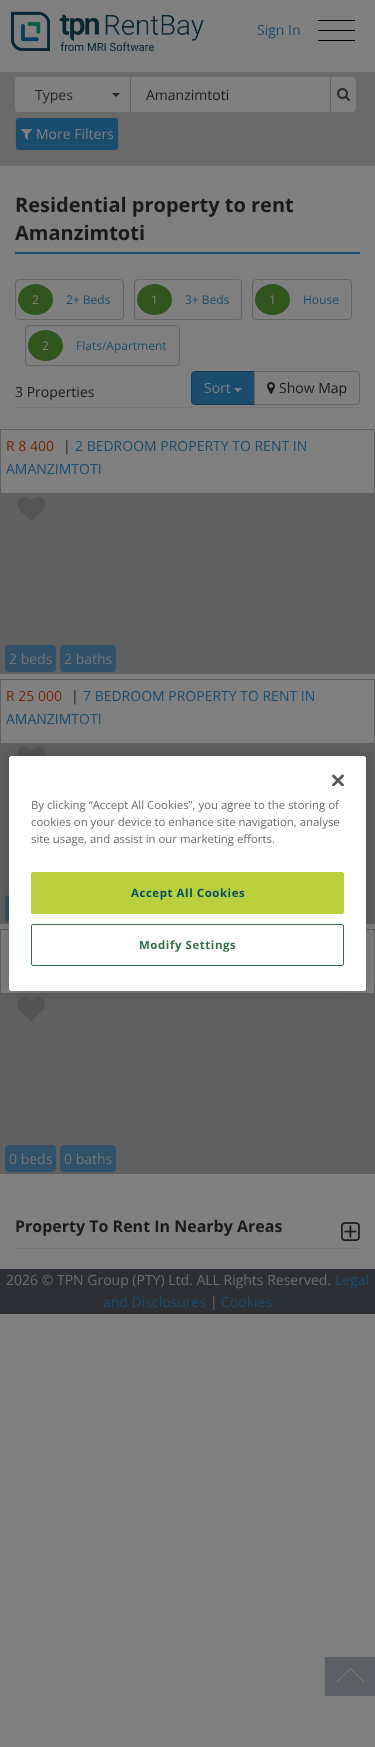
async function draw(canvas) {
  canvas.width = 375;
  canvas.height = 1747;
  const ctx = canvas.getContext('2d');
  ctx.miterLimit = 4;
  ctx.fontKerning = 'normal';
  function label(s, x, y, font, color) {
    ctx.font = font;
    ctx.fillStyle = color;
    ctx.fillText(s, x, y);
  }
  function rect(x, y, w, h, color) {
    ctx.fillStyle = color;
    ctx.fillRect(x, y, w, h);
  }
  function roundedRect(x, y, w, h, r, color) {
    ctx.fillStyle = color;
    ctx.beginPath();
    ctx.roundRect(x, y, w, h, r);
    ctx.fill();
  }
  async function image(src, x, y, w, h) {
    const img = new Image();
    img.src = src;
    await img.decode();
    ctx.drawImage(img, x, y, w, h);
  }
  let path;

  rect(0, 0, 375, 1747, '#808080');
  await image('assets/img1.png', 11, 11, 193, 40);
  label('Sign In', 257, 35, '14px Open Sans', '#1a4c6e');
  rect(318, 20, 37, 1, '#000');
  rect(318, 30, 37, 1, '#000');
  rect(318, 40, 37, 1, '#000');
  rect(0, 72, 375, 94, '#6a6a6a');
  ctx.fillStyle = '#808080';
  ctx.beginPath();
  ctx.roundRect(15, 77, 115, 35, [4, 0, 0, 4]);
  ctx.fill();
  roundedRect(15, 77, 115, 35, 4, '#808080');
  label('Types', 35, 100, '14px Open Sans', '#1f242a');
  path = new Path2D('M112 93H120L116 97Z');
  ctx.fill(path);
  rect(131, 77, 199, 34, '#808080');
  rect(330, 77, 1, 35, '#666');
  rect(130, 111, 201, 1, '#808080');
  rect(130, 77, 1, 35, '#666');
  label('Amanzimtoti', 146, 100, '14px Open Sans', '#1a1a1a');
  ctx.fillStyle = '#808080';
  ctx.beginPath();
  ctx.roundRect(331, 77, 25, 35, [0, 4, 4, 0]);
  ctx.fill();
  await image('assets/img2.png', 337, 88, 13, 13);
  ctx.fillStyle = '#1a4c6e';
  ctx.beginPath();
  ctx.roundRect(15.5, 117.5, 103, 33, 3.5);
  ctx.fill();
  ctx.strokeStyle = '#666';
  ctx.stroke();
  await image('assets/img3.png', 21, 129, 11, 11);
  label('More Filters', 36, 139, '14px Open Sans', '#808080');
  rect(15, 252, 345, 2, '#1a4c6e');
  label('Residential property to rent', 15, 212, 'bold 20px Open Sans', '#1a1a1a');
  label('Amanzimtoti', 15, 240, 'bold 20px Open Sans', '#1a1a1a');
  ctx.beginPath();
  ctx.roundRect(15.5, 279.5, 108, 40, 3.5);
  ctx.stroke();
  ctx.fillStyle = '#31551f';
  ctx.beginPath();
  ctx.ellipse(35.5, 299.5, 17.5, 15.5, 0, 0, 2 * Math.PI);
  ctx.fill();
  label('2', 32, 304, '12px Open Sans', '#808080');
  label('2+ Beds', 66, 304, '12px Open Sans', '#1a4c6e');
  ctx.beginPath();
  ctx.roundRect(134.5, 279.5, 107, 40, 3.5);
  ctx.stroke();
  ctx.fillStyle = '#31551f';
  ctx.beginPath();
  ctx.ellipse(154.5, 299.5, 17.5, 15.5, 0, 0, 2 * Math.PI);
  ctx.fill();
  label('1', 151, 304, '12px Open Sans', '#808080');
  label('3+ Beds', 185, 304, '12px Open Sans', '#1a4c6e');
  ctx.beginPath();
  ctx.roundRect(252.5, 279.5, 99, 40, 3.5);
  ctx.stroke();
  ctx.fillStyle = '#31551f';
  ctx.beginPath();
  ctx.ellipse(272.5, 299.5, 17.5, 15.5, 0, 0, 2 * Math.PI);
  ctx.fill();
  label('1', 269, 304, '12px Open Sans', '#808080');
  label('House', 303, 304, '12px Open Sans', '#1a4c6e');
  ctx.beginPath();
  ctx.roundRect(25.5, 325.5, 154, 40, 3.5);
  ctx.stroke();
  ctx.fillStyle = '#31551f';
  ctx.beginPath();
  ctx.ellipse(45.5, 345.5, 17.5, 15.5, 0, 0, 2 * Math.PI);
  ctx.fill();
  label('2', 42, 350, '12px Open Sans', '#808080');
  label('Flats/Apartment', 76, 350, '12px Open Sans', '#1a4c6e');
  label('3 Properties', 15, 397, '14px Open Sans', '#1a1a1a');
  ctx.fillStyle = '#1a4c6e';
  ctx.beginPath();
  ctx.roundRect(191.5, 371.5, 63, 33, [3.5, 0, 0, 3.5]);
  ctx.fill();
  ctx.strokeStyle = '#173752';
  ctx.stroke();
  label('Sort', 204, 393, '14px Open Sans', '#808080');
  path = new Path2D('M234 388H242L238 392Z');
  ctx.fill(path);
  ctx.beginPath();
  ctx.roundRect(254.5, 371.5, 105, 33, [0, 3.5, 3.5, 0]);
  ctx.fill();
  ctx.strokeStyle = '#666';
  ctx.stroke();
  await image('assets/img4.png', 267, 382, 8, 12);
  label('Show Map', 279, 393, '14px Open Sans', '#1a1a1a');
  rect(15, 407, 345, 1, '#777');
  ctx.strokeStyle = '#606060';
  ctx.strokeRect(0.5, 429.5, 374, 244);
  label('R 8 400', 6, 451, '14px Open Sans', '#782506');
  label('|', 63, 451, '14px Open Sans', '#1a1a1a');
  label('2 BEDROOM PROPERTY TO RENT IN', 75, 451, '14px Open Sans', '#1a4c6e');
  label('AMANZIMTOTI', 6, 474, '14px Open Sans', '#1a4c6e');
  rect(1, 493, 373, 180, '#606060');
  await image('assets/img5.png', 17, 497, 28, 24);
  roundedRect(5, 645, 51, 27, 4, '#2f526a');
  label('2 beds', 9, 664, '14px Open Sans', '#767676');
  roundedRect(60, 645, 56, 27, 4, '#2f526a');
  label('2 baths', 64, 664, '14px Open Sans', '#767676');
  ctx.strokeRect(0.5, 679.5, 374, 244);
  label('R 25 000', 6, 701, '14px Open Sans', '#782506');
  label('|', 71, 701, '14px Open Sans', '#1a1a1a');
  label('7 BEDROOM PROPERTY TO RENT IN', 83, 701, '14px Open Sans', '#1a4c6e');
  label('AMANZIMTOTI', 6, 724, '14px Open Sans', '#1a4c6e');
  rect(1, 743, 373, 180, '#606060');
  await image('assets/img6.png', 17, 747, 28, 9);
  roundedRect(5, 895, 51, 27, 4, '#2f526a');
  ctx.strokeRect(0.5, 929.5, 374, 244);
  rect(1, 993, 373, 180, '#606060');
  await image('assets/img5.png', 17, 997, 28, 24);
  roundedRect(5, 1145, 51, 27, 4, '#2f526a');
  label('0 beds', 9, 1164, '14px Open Sans', '#767676');
  roundedRect(60, 1145, 56, 27, 4, '#2f526a');
  label('0 baths', 64, 1164, '14px Open Sans', '#767676');
  rect(15, 1248, 345, 1, '#777');
  label('Property To Rent In Nearby Areas', 15, 1232, 'bold 16px Open Sans', '#1a1a1a');
  await image('assets/img7.png', 341, 1222, 19, 19);
  ctx.fillStyle = '#00000033';
  ctx.filter = 'blur(9px)';
  ctx.beginPath();
  ctx.roundRect(9, 756, 357, 235, 2.5);
  ctx.fill();
  ctx.filter = 'none';
  roundedRect(9, 756, 357, 235, 2.5, '#fff');
  await image('assets/img8.png', 332, 774, 12, 12);
  label('By clicking “Accept All Cookies”, you agree to the storing of', 31, 809, '11.4px Open Sans', '#6d6d6d');
  label('cookies on your device to enhance site navigation, analyse', 31, 826, '11.4px Open Sans', '#6d6d6d');
  label('site usage, and assist in our marketing efforts.', 31, 843, '11.4px Open Sans', '#6d6d6d');
  ctx.fillStyle = '#b9cf3b';
  ctx.beginPath();
  ctx.roundRect(31.5, 872.5, 312, 41, 1.5);
  ctx.fill();
  ctx.strokeStyle = '#b9cf3b';
  ctx.stroke();
  ctx.letterSpacing = '0.6px';
  label('Accept All Cookies', 131, 897, 'bold 11.4px Open Sans', '#054e66');
  ctx.beginPath();
  ctx.roundRect(31.5, 924.5, 312, 41, 1.5);
  ctx.strokeStyle = '#346e4a';
  ctx.stroke();
  label('Modify Settings', 139, 949, 'bold 11.4px Open Sans', '#346e4a');
  rect(0, 1269, 375, 45, '#2c3035');
  ctx.letterSpacing = '0px';
  label('2026 © TPN Group (PTY) Ltd. ALL Rights Reserved.', 6, 1285, '14px Open Sans', '#6d6d6d');
  label('Legal', 335, 1285, '14px Open Sans', '#1a4c6e');
  label('and Disclosures', 103, 1307, '14px Open Sans', '#1a4c6e');
  label('|', 210, 1307, '14px Open Sans', '#6d6d6d');
  label('Cookies', 221, 1307, '14px Open Sans', '#1a4c6e');
  await image('assets/img9.png', 325, 1657, 50, 39);
}

draw(document.querySelector('canvas'));
